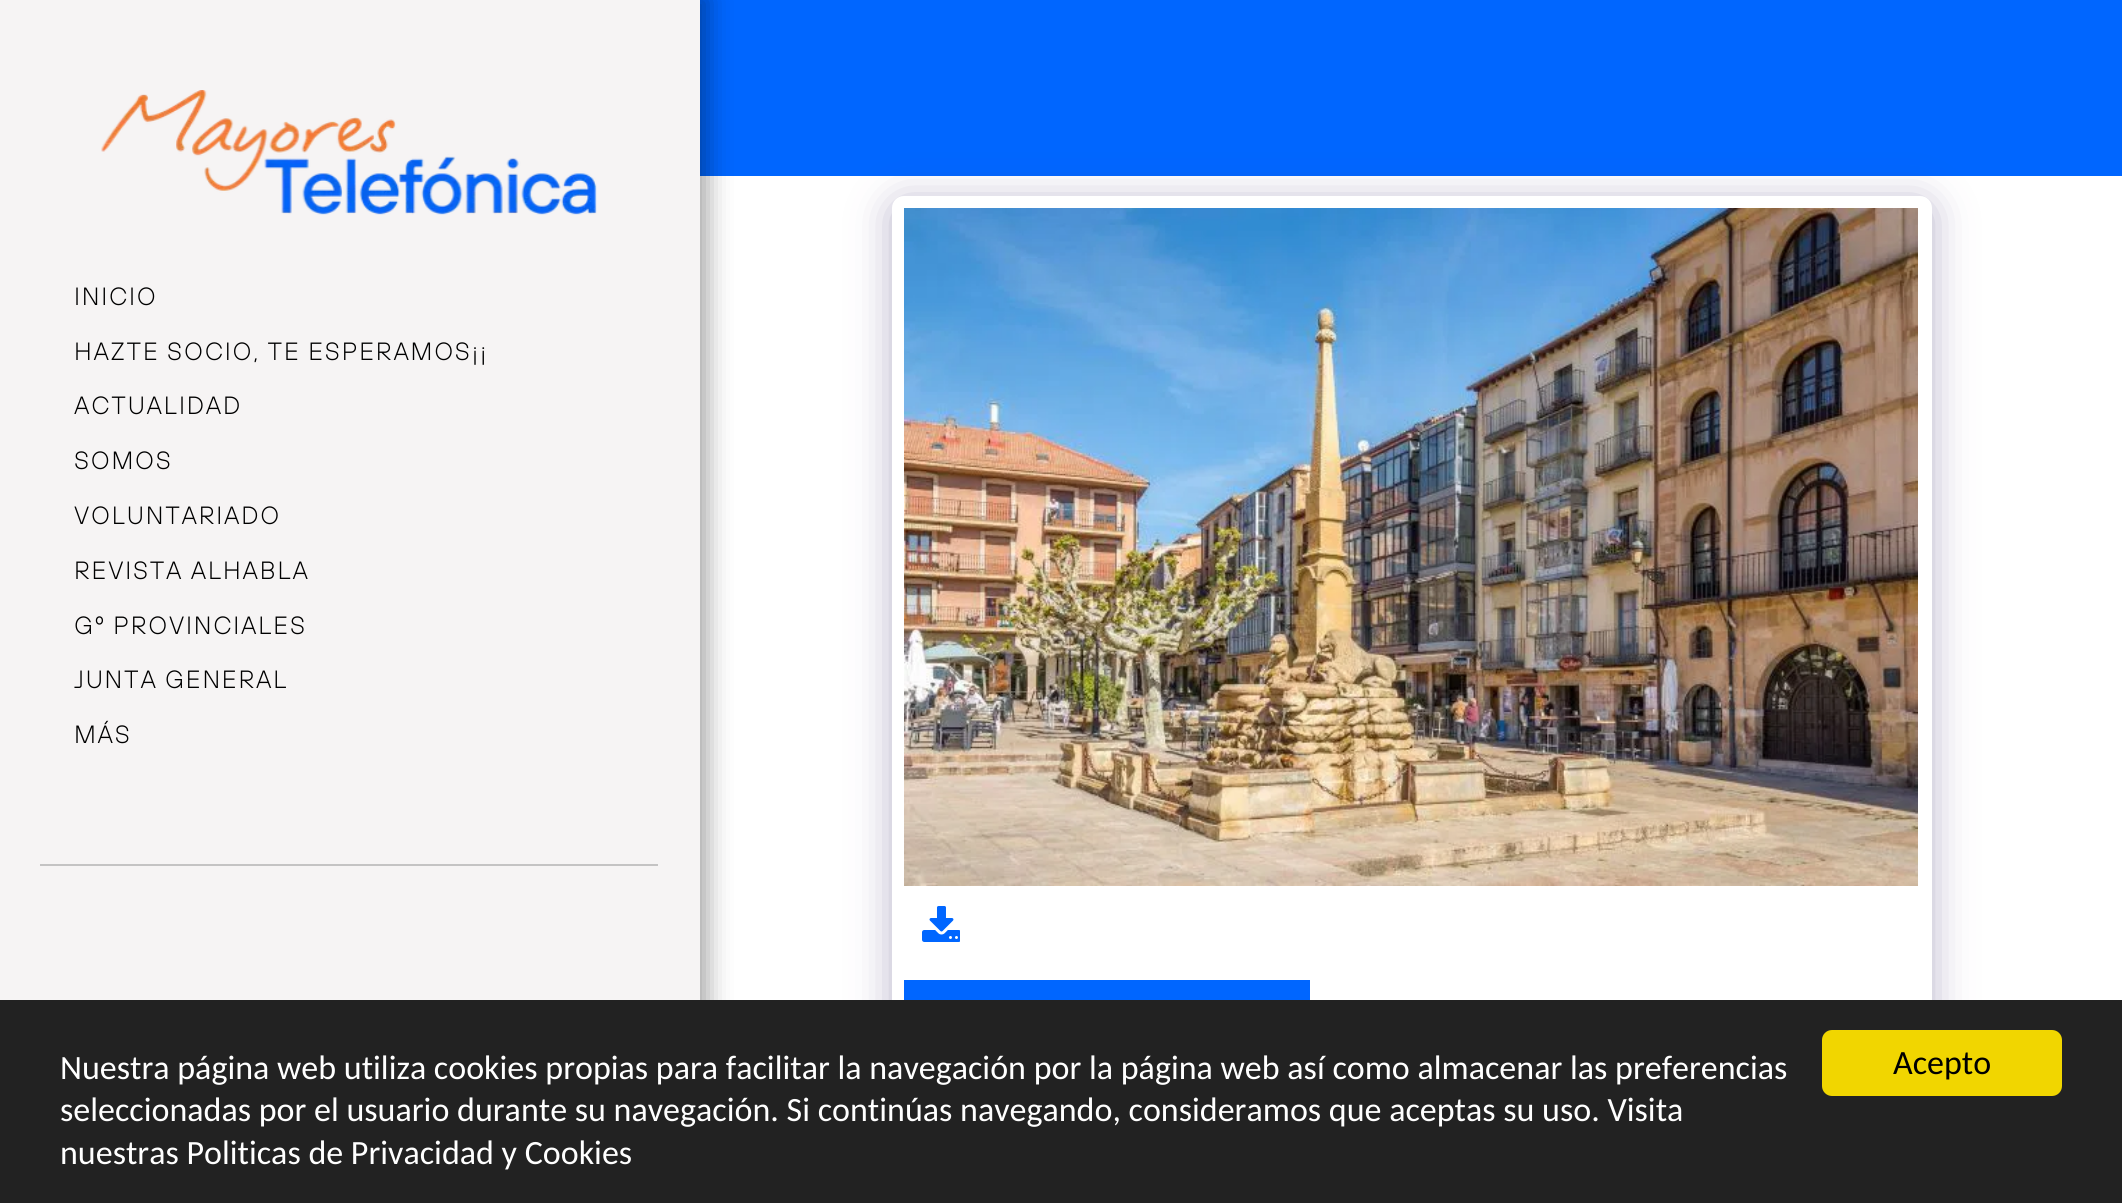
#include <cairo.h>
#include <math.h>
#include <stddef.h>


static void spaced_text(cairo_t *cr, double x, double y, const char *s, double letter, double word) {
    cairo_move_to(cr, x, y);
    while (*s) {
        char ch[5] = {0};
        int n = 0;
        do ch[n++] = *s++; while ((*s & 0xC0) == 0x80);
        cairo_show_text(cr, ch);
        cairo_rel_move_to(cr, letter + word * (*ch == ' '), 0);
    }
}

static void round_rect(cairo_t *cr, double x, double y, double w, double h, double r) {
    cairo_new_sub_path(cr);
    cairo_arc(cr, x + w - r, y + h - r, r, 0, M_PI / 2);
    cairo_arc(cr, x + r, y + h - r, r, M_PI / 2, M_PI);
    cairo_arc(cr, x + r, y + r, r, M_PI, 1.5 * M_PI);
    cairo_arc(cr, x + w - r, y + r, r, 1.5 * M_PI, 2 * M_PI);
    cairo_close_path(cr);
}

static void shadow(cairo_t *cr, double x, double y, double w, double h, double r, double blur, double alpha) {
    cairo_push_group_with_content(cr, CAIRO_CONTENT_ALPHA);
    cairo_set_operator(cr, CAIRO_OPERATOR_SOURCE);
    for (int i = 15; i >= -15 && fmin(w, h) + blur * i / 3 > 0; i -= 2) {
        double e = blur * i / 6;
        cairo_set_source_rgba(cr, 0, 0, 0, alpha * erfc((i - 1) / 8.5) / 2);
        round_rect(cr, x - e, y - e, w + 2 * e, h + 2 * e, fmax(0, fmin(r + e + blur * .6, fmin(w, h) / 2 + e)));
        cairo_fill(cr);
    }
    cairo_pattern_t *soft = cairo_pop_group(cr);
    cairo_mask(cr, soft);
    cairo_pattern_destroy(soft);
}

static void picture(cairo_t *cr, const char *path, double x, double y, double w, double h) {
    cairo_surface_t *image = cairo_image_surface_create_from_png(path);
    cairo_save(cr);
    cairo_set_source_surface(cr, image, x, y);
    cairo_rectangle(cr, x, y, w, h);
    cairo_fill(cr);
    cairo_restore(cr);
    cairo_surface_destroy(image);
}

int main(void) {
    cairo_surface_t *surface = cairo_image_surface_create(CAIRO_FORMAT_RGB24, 2122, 1203);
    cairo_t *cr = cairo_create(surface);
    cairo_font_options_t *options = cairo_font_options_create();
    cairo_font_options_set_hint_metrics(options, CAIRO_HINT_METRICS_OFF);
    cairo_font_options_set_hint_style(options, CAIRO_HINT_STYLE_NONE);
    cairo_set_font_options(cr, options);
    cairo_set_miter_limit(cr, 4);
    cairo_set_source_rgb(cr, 1, 1, 1);
    cairo_paint(cr);
    cairo_set_source_rgb(cr, 0, 0.4, 1);
    cairo_rectangle(cr, 700, 0, 1422, 176);
    cairo_fill(cr);
    cairo_set_source_rgb(cr, 0, 0, 0);
    shadow(cr, 0, -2, 708, 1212, 0, 12, 0.35);
    cairo_set_source_rgb(cr, 0.961, 0.957, 0.957);
    cairo_rectangle(cr, 0, 0, 700, 1000);
    cairo_fill(cr);
    picture(cr, "img1.png", 101, 90, 496, 125);
    cairo_select_font_face(cr, "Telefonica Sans", CAIRO_FONT_SLANT_NORMAL, CAIRO_FONT_WEIGHT_BOLD);
    cairo_set_font_size(cr, 24);
    cairo_set_source_rgb(cr, 0, 0, 0);
    spaced_text(cr, 74, 305, "INICIO", 2.4, 0);
    spaced_text(cr, 74, 360, "HAZTE SOCIO, TE ESPERAMOS¡¡", 2.4, 0);
    spaced_text(cr, 74, 414, "ACTUALIDAD", 2.4, 0);
    spaced_text(cr, 74, 469, "SOMOS", 2.4, 0);
    spaced_text(cr, 74, 524, "VOLUNTARIADO", 2.4, 0);
    spaced_text(cr, 74, 579, "REVISTA ALHABLA", 2.4, 0);
    spaced_text(cr, 74, 634, "Gº PROVINCIALES", 2.4, 0);
    spaced_text(cr, 74, 688, "JUNTA GENERAL", 2.4, 0);
    spaced_text(cr, 74, 743, "MÁS", 2.4, 0);
    cairo_set_source_rgb(cr, 0.769, 0.765, 0.765);
    cairo_rectangle(cr, 40, 864, 618, 2);
    cairo_fill(cr);
    cairo_set_source_rgb(cr, 0.302, 0.247, 0.478);
    shadow(cr, 892, 202, 1040, 904, 12, 20, 0.4);
    cairo_set_source_rgb(cr, 1, 1, 1);
    round_rect(cr, 892, 196, 1040, 904, 12);
    cairo_fill(cr);
    picture(cr, "img2.png", 904, 208, 1014, 678);
    picture(cr, "img3.png", 922, 906, 38, 36);
    cairo_set_source_rgb(cr, 0, 0.4, 1);
    cairo_rectangle(cr, 904, 980, 406, 20);
    cairo_fill(cr);
    cairo_new_path(cr);
    cairo_move_to(cr, 904, 1088);
    cairo_line_to(cr, 904, 980);
    cairo_line_to(cr, 906, 982);
    cairo_line_to(cr, 906, 1082);
    cairo_close_path(cr);
    cairo_fill(cr);
    cairo_set_source_rgb(cr, 0.133, 0.133, 0.133);
    cairo_rectangle(cr, 0, 1000, 2122, 203);
    cairo_fill(cr);
    cairo_select_font_face(cr, "Carlito", CAIRO_FONT_SLANT_NORMAL, CAIRO_FONT_WEIGHT_NORMAL);
    cairo_set_font_size(cr, 34);
    cairo_set_source_rgb(cr, 1, 1, 1);
    cairo_move_to(cr, 60, 1079);
    cairo_show_text(cr, "Nuestra página web utiliza cookies propias para facilitar la navegación por la página web así como almacenar las preferencias");
    cairo_move_to(cr, 60, 1121);
    cairo_show_text(cr, "seleccionadas por el usuario durante su navegación. Si continúas navegando, consideramos que aceptas su uso. Visita");
    cairo_move_to(cr, 60, 1164);
    cairo_show_text(cr, "nuestras Politicas de Privacidad y Cookies");
    cairo_set_source_rgb(cr, 0.945, 0.839, 0);
    round_rect(cr, 1822, 1030, 240, 66, 10);
    cairo_fill(cr);
    cairo_set_source_rgb(cr, 0, 0, 0);
    cairo_move_to(cr, 1893, 1074);
    cairo_show_text(cr, "Acepto");
    cairo_surface_write_to_png(surface, "page.png");
    cairo_font_options_destroy(options);
    cairo_destroy(cr);
    cairo_surface_destroy(surface);
    return 0;
}
